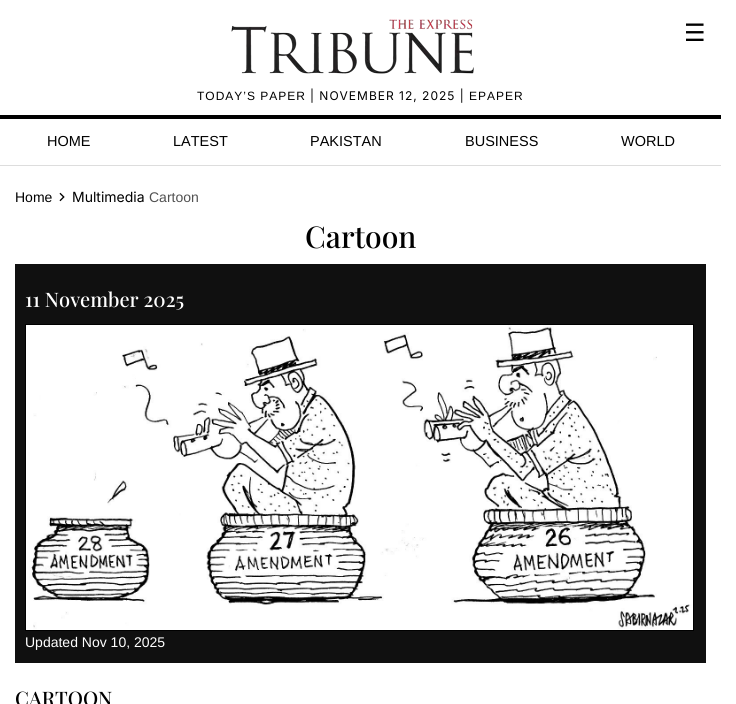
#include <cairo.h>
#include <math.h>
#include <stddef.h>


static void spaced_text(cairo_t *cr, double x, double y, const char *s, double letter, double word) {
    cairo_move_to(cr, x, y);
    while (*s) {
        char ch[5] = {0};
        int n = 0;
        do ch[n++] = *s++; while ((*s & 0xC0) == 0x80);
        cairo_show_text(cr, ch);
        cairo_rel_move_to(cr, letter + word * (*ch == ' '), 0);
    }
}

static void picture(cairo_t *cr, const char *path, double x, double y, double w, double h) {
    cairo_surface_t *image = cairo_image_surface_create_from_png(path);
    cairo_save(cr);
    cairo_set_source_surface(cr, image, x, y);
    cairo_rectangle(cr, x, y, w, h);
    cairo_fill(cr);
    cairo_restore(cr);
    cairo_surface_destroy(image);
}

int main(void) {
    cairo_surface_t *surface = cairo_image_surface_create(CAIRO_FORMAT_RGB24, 736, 704);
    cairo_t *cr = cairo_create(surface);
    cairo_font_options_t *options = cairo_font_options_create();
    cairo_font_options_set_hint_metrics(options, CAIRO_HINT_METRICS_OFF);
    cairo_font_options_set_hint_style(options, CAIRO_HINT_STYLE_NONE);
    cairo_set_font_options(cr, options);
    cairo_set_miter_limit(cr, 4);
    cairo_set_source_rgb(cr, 1, 1, 1);
    cairo_paint(cr);
    picture(cr, "img1.png", 231, 19, 243, 55);
    cairo_select_font_face(cr, "DejaVu Sans", CAIRO_FONT_SLANT_NORMAL, CAIRO_FONT_WEIGHT_NORMAL);
    cairo_set_font_size(cr, 24);
    cairo_set_source_rgb(cr, 0, 0, 0);
    cairo_move_to(cr, 684, 41);
    cairo_show_text(cr, "☰");
    cairo_select_font_face(cr, "Liberation Sans", CAIRO_FONT_SLANT_NORMAL, CAIRO_FONT_WEIGHT_NORMAL);
    cairo_set_font_size(cr, 12);
    spaced_text(cr, 197, 100, "TODAY’S PAPER", 1, 0);
    cairo_select_font_face(cr, "Inter", CAIRO_FONT_SLANT_NORMAL, CAIRO_FONT_WEIGHT_NORMAL);
    spaced_text(cr, 310, 100, "| NOVEMBER 12, 2025 |", 1, 0);
    cairo_select_font_face(cr, "Liberation Sans", CAIRO_FONT_SLANT_NORMAL, CAIRO_FONT_WEIGHT_NORMAL);
    spaced_text(cr, 469, 100, "EPAPER", 1, 0);
    cairo_rectangle(cr, 0, 115, 721, 4);
    cairo_fill(cr);
    cairo_set_source_rgb(cr, 0.867, 0.867, 0.867);
    cairo_rectangle(cr, 0, 165, 721, 1);
    cairo_fill(cr);
    cairo_set_font_size(cr, 14.5);
    cairo_set_source_rgb(cr, 0, 0, 0);
    cairo_move_to(cr, 47, 146);
    cairo_show_text(cr, "HOME");
    cairo_move_to(cr, 173, 146);
    cairo_show_text(cr, "LATEST");
    cairo_move_to(cr, 310, 146);
    cairo_show_text(cr, "PAKISTAN");
    cairo_move_to(cr, 465, 146);
    cairo_show_text(cr, "BUSINESS");
    cairo_move_to(cr, 621, 146);
    cairo_show_text(cr, "WORLD");
    cairo_set_font_size(cr, 14);
    cairo_move_to(cr, 15, 202);
    cairo_show_text(cr, "Home");
    picture(cr, "img2.png", 59, 192, 6, 10);
    cairo_select_font_face(cr, "Inter", CAIRO_FONT_SLANT_NORMAL, CAIRO_FONT_WEIGHT_NORMAL);
    cairo_move_to(cr, 72, 202);
    cairo_show_text(cr, "Multimedia");
    cairo_select_font_face(cr, "Liberation Sans", CAIRO_FONT_SLANT_NORMAL, CAIRO_FONT_WEIGHT_NORMAL);
    cairo_set_source_rgb(cr, 0.318, 0.318, 0.318);
    cairo_move_to(cr, 149, 202);
    cairo_show_text(cr, "Cartoon");
    cairo_select_font_face(cr, "Playfair Display Medium", CAIRO_FONT_SLANT_NORMAL, CAIRO_FONT_WEIGHT_NORMAL);
    cairo_set_font_size(cr, 30);
    cairo_set_source_rgb(cr, 0, 0, 0);
    cairo_move_to(cr, 305, 248);
    cairo_show_text(cr, "Cartoon");
    cairo_set_source_rgb(cr, 0.063, 0.063, 0.063);
    cairo_rectangle(cr, 15, 264, 691, 399);
    cairo_fill(cr);
    cairo_set_font_size(cr, 20);
    cairo_set_source_rgb(cr, 1, 1, 1);
    cairo_move_to(cr, 25, 307);
    cairo_show_text(cr, "11 November 2025");
    cairo_rectangle(cr, 25.5, 324.5, 668, 306);
    cairo_set_source_rgb(cr, 0, 0, 0);
    cairo_set_line_width(cr, 1);
    cairo_stroke(cr);
    picture(cr, "img3.png", 26, 325, 667, 305);
    cairo_select_font_face(cr, "Liberation Sans", CAIRO_FONT_SLANT_NORMAL, CAIRO_FONT_WEIGHT_NORMAL);
    cairo_set_font_size(cr, 14);
    cairo_set_source_rgb(cr, 1, 1, 1);
    cairo_move_to(cr, 25, 647);
    cairo_show_text(cr, "Updated Nov 10, 2025");
    cairo_select_font_face(cr, "Playfair Display Medium", CAIRO_FONT_SLANT_NORMAL, CAIRO_FONT_WEIGHT_NORMAL);
    cairo_set_font_size(cr, 20);
    cairo_set_source_rgb(cr, 0, 0, 0);
    cairo_move_to(cr, 15, 706);
    cairo_show_text(cr, "CARTOON");
    cairo_surface_write_to_png(surface, "page.png");
    cairo_font_options_destroy(options);
    cairo_destroy(cr);
    cairo_surface_destroy(surface);
    return 0;
}
